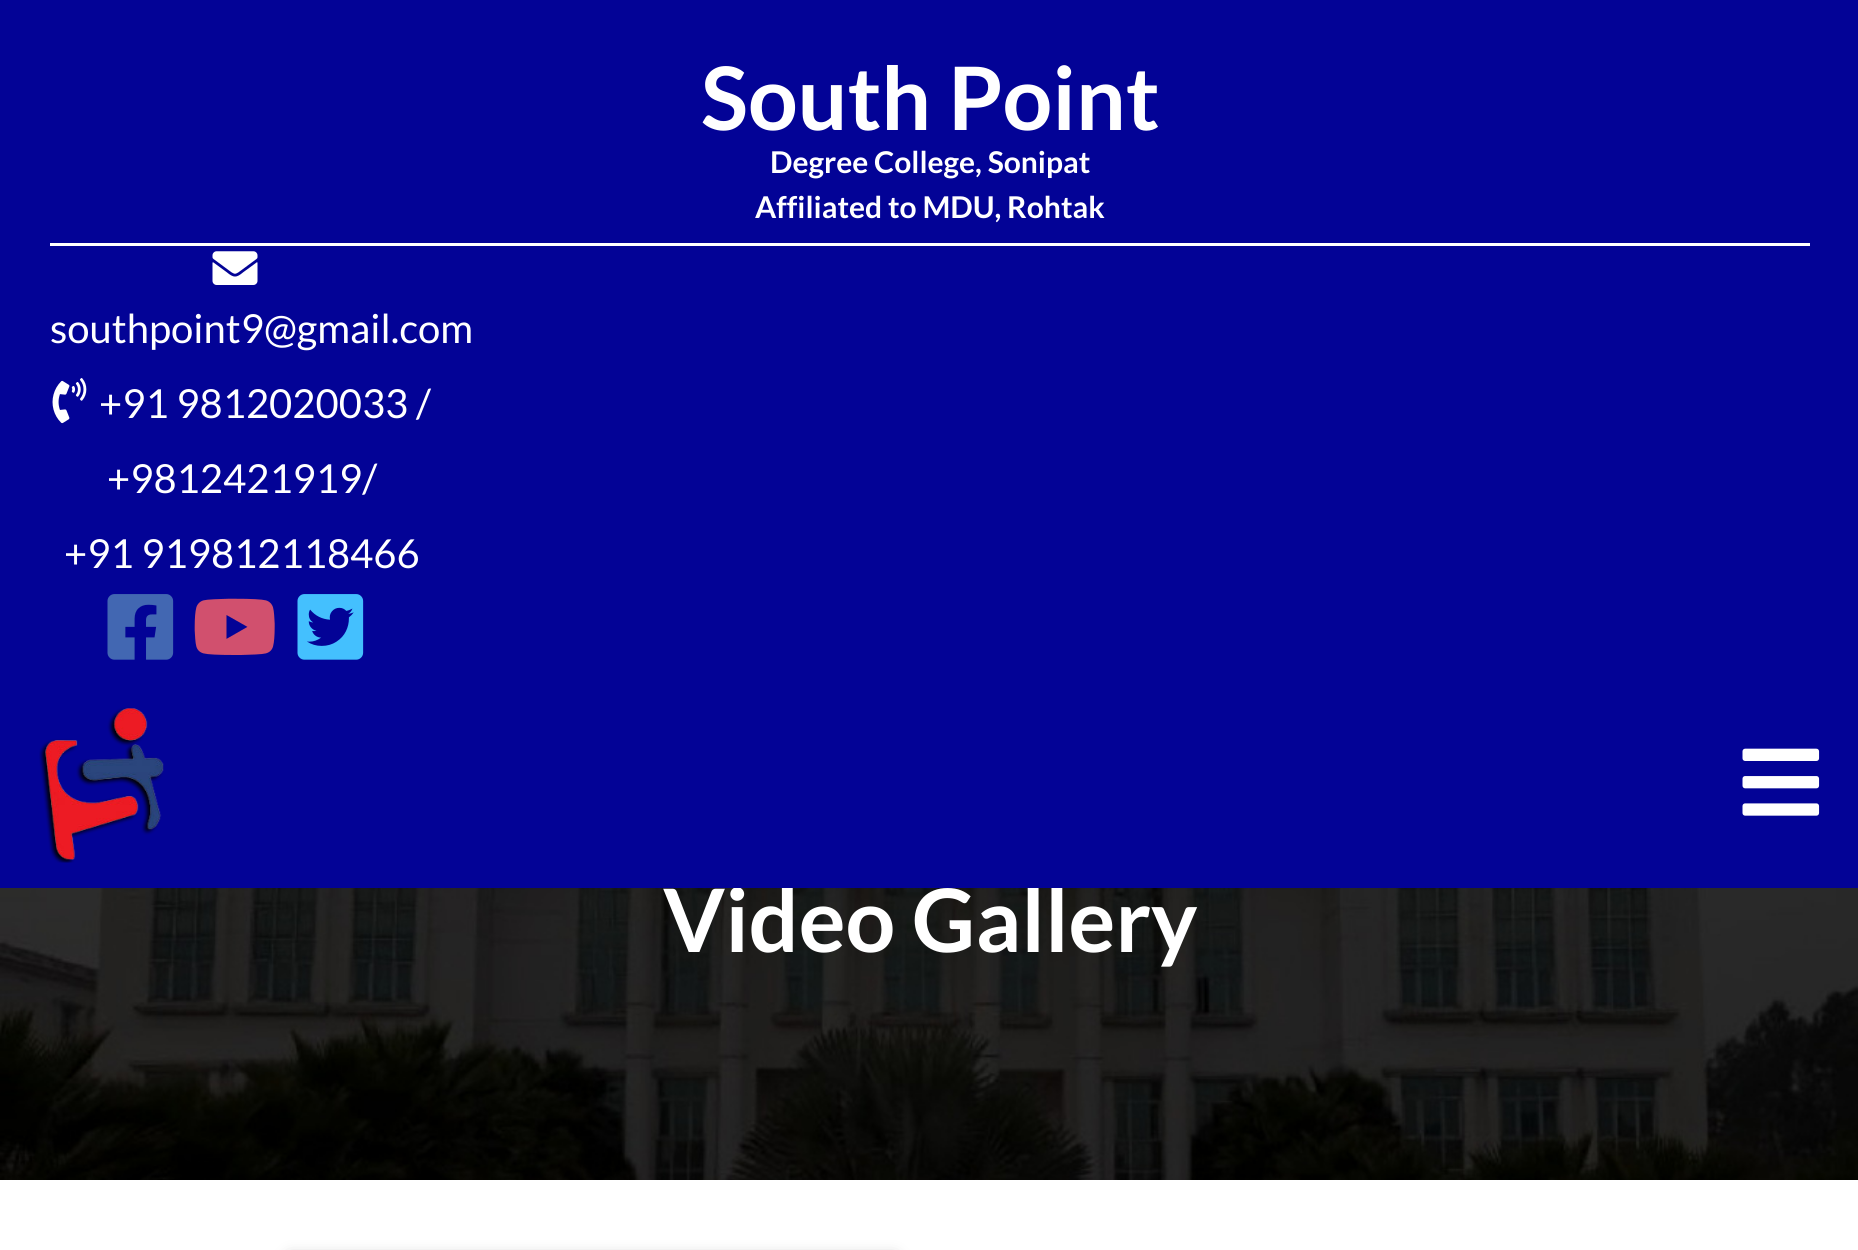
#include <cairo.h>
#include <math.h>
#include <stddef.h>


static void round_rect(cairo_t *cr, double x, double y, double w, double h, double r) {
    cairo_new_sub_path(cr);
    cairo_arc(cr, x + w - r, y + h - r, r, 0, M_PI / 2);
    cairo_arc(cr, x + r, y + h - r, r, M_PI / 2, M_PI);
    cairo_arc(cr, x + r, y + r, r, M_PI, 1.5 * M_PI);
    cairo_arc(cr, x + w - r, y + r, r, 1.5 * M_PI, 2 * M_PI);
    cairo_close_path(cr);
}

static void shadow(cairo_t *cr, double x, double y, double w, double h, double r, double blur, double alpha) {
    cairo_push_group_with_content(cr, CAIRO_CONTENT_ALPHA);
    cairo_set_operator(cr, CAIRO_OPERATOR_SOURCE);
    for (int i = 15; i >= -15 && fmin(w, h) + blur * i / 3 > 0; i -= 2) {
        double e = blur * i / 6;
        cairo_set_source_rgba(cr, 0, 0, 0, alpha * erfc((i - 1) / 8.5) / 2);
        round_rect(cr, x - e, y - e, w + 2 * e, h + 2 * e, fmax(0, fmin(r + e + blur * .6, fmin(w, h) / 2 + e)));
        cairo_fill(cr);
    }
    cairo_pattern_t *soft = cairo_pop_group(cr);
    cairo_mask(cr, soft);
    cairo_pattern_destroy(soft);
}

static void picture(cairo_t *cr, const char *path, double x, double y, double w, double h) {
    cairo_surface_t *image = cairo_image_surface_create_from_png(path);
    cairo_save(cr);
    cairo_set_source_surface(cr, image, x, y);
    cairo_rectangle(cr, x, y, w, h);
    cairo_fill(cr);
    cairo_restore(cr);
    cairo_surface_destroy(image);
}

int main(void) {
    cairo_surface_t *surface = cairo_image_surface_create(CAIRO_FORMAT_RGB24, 1858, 1250);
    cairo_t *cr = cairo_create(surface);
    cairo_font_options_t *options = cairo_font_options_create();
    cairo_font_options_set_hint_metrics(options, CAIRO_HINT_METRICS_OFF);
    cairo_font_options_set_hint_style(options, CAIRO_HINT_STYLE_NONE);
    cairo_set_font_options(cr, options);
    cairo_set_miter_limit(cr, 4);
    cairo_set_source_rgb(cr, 1, 1, 1);
    cairo_paint(cr);
    picture(cr, "img8.png", 0, 888, 1858, 292);
    cairo_select_font_face(cr, "Lato", CAIRO_FONT_SLANT_NORMAL, CAIRO_FONT_WEIGHT_BOLD);
    cairo_set_font_size(cr, 87.5);
    cairo_set_source_rgb(cr, 1, 1, 1);
    cairo_move_to(cr, 663, 952);
    cairo_show_text(cr, "Video Gallery");
    cairo_set_source_rgb(cr, 0.012, 0.012, 0.588);
    cairo_rectangle(cr, 0, 0, 1858, 888);
    cairo_fill(cr);
    cairo_set_source_rgb(cr, 1, 1, 1);
    cairo_move_to(cr, 701, 130);
    cairo_show_text(cr, "South Point");
    cairo_set_font_size(cr, 30);
    cairo_move_to(cr, 770, 173);
    cairo_show_text(cr, "Degree College, Sonipat");
    cairo_rectangle(cr, 50, 243, 1760, 3);
    cairo_fill(cr);
    cairo_move_to(cr, 755, 218);
    cairo_show_text(cr, "Affiliated to MDU, Rohtak");
    picture(cr, "img1.png", 212, 251, 46, 34);
    cairo_select_font_face(cr, "Lato", CAIRO_FONT_SLANT_NORMAL, CAIRO_FONT_WEIGHT_NORMAL);
    cairo_set_font_size(cr, 40);
    cairo_move_to(cr, 50, 343);
    cairo_show_text(cr, "southpoint9@gmail.com");
    picture(cr, "img2.png", 52, 378, 35, 46);
    cairo_move_to(cr, 99, 418);
    cairo_show_text(cr, "+91 9812020033 /");
    cairo_move_to(cr, 107, 493);
    cairo_show_text(cr, "+9812421919/");
    cairo_move_to(cr, 64, 568);
    cairo_show_text(cr, "+91 919812118466");
    picture(cr, "img3.png", 107, 594, 67, 66);
    picture(cr, "img4.png", 194, 598, 81, 57);
    picture(cr, "img5.png", 297, 594, 67, 66);
    picture(cr, "img6.png", 39, 707, 125, 156);
    picture(cr, "img7.png", 1742, 748, 78, 68);
    cairo_set_source_rgb(cr, 0.631, 0.631, 0.631);
    shadow(cr, 290, 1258, 605, 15, 0, 7.5, 1);
    cairo_surface_write_to_png(surface, "page.png");
    cairo_font_options_destroy(options);
    cairo_destroy(cr);
    cairo_surface_destroy(surface);
    return 0;
}
